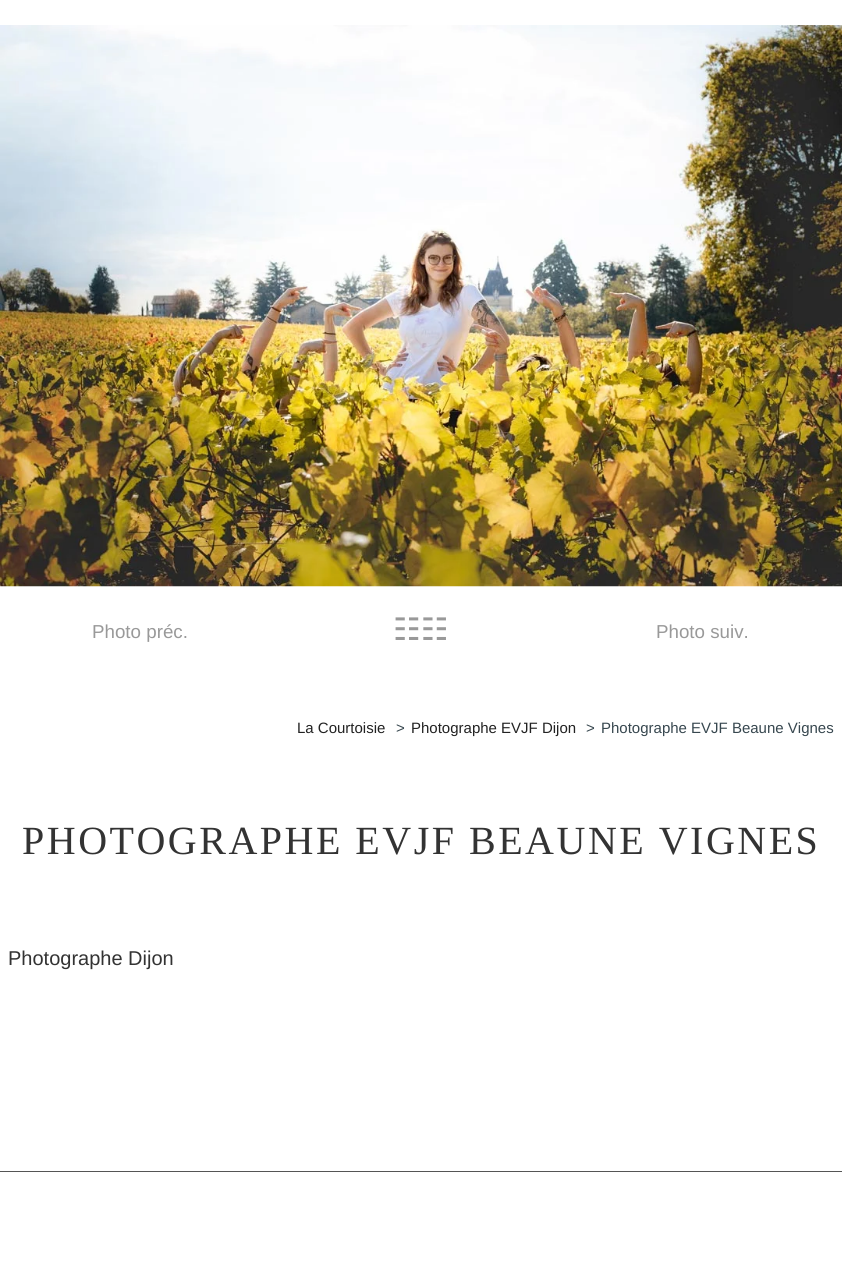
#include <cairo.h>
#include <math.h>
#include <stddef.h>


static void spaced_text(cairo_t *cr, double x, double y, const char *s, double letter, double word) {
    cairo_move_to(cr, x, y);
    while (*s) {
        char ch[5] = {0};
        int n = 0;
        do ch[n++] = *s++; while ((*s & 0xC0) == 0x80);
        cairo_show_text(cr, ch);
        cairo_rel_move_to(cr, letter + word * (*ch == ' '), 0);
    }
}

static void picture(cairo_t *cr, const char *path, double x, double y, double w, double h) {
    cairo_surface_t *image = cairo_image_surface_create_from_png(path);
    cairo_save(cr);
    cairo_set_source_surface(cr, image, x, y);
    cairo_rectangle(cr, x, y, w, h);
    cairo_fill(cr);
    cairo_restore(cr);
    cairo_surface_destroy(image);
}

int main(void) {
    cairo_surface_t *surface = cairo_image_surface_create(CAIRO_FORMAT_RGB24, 842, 1278);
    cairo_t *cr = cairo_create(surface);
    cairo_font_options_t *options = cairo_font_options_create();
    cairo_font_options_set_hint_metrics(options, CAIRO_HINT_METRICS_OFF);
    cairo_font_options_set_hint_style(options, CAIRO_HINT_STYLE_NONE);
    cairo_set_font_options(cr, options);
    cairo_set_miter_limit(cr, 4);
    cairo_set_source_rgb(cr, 1, 1, 1);
    cairo_paint(cr);
    picture(cr, "img1.png", 0, 25, 842, 562);
    cairo_select_font_face(cr, "Liberation Sans", CAIRO_FONT_SLANT_NORMAL, CAIRO_FONT_WEIGHT_NORMAL);
    cairo_set_font_size(cr, 18.75);
    cairo_set_source_rgb(cr, 0.6, 0.6, 0.6);
    cairo_move_to(cr, 92, 638);
    cairo_show_text(cr, "Photo préc.");
    cairo_select_font_face(cr, "DejaVu Sans", CAIRO_FONT_SLANT_NORMAL, CAIRO_FONT_WEIGHT_NORMAL);
    cairo_set_font_size(cr, 31);
    cairo_move_to(cr, 393, 640);
    cairo_show_text(cr, "☷☷");
    cairo_select_font_face(cr, "Liberation Sans", CAIRO_FONT_SLANT_NORMAL, CAIRO_FONT_WEIGHT_NORMAL);
    cairo_set_font_size(cr, 18.75);
    cairo_move_to(cr, 656, 638);
    cairo_show_text(cr, "Photo suiv.");
    cairo_set_font_size(cr, 15);
    cairo_set_source_rgb(cr, 0.133, 0.133, 0.133);
    cairo_move_to(cr, 297, 733);
    cairo_show_text(cr, "La Courtoisie");
    cairo_set_source_rgb(cr, 0.216, 0.278, 0.31);
    cairo_move_to(cr, 396, 733);
    cairo_show_text(cr, ">");
    cairo_set_source_rgb(cr, 0.133, 0.133, 0.133);
    cairo_move_to(cr, 411, 733);
    cairo_show_text(cr, "Photographe EVJF Dijon");
    cairo_set_source_rgb(cr, 0.216, 0.278, 0.31);
    cairo_move_to(cr, 586, 733);
    cairo_show_text(cr, ">");
    cairo_move_to(cr, 601, 733);
    cairo_show_text(cr, "Photographe EVJF Beaune Vignes");
    cairo_select_font_face(cr, "Liberation Serif", CAIRO_FONT_SLANT_NORMAL, CAIRO_FONT_WEIGHT_NORMAL);
    cairo_set_font_size(cr, 40);
    cairo_set_source_rgb(cr, 0.2, 0.2, 0.2);
    spaced_text(cr, 22, 854, "PHOTOGRAPHE EVJF BEAUNE VIGNES", 2.5, 0);
    cairo_select_font_face(cr, "Liberation Sans", CAIRO_FONT_SLANT_NORMAL, CAIRO_FONT_WEIGHT_NORMAL);
    cairo_set_font_size(cr, 20);
    cairo_move_to(cr, 8, 965);
    cairo_show_text(cr, "Photographe Dijon");
    cairo_set_source_rgb(cr, 0.333, 0.333, 0.333);
    cairo_rectangle(cr, 0, 1171, 842, 1);
    cairo_fill(cr);
    cairo_surface_write_to_png(surface, "page.png");
    cairo_font_options_destroy(options);
    cairo_destroy(cr);
    cairo_surface_destroy(surface);
    return 0;
}
